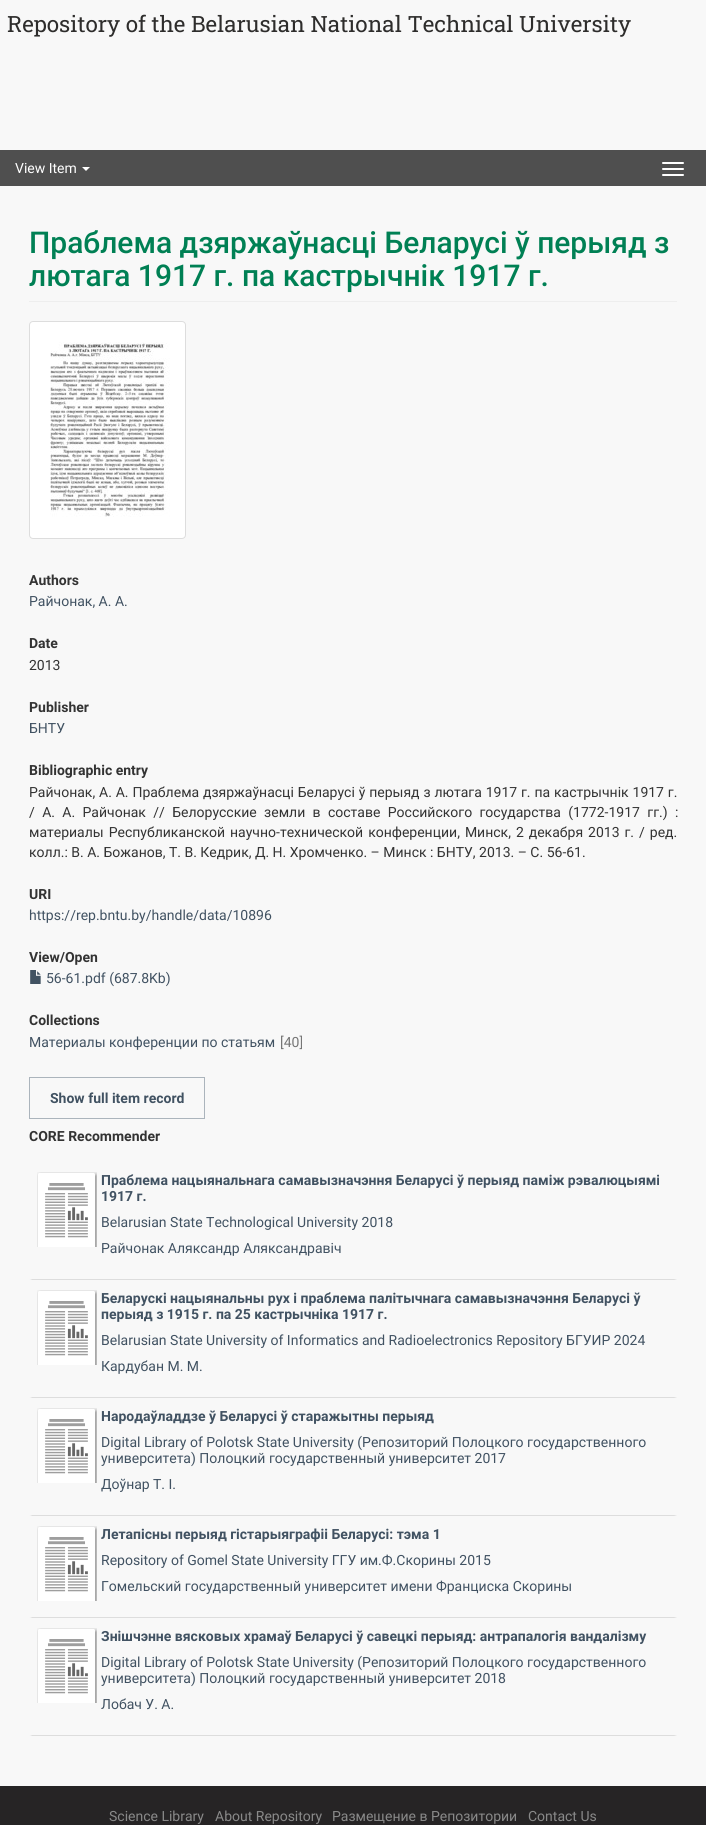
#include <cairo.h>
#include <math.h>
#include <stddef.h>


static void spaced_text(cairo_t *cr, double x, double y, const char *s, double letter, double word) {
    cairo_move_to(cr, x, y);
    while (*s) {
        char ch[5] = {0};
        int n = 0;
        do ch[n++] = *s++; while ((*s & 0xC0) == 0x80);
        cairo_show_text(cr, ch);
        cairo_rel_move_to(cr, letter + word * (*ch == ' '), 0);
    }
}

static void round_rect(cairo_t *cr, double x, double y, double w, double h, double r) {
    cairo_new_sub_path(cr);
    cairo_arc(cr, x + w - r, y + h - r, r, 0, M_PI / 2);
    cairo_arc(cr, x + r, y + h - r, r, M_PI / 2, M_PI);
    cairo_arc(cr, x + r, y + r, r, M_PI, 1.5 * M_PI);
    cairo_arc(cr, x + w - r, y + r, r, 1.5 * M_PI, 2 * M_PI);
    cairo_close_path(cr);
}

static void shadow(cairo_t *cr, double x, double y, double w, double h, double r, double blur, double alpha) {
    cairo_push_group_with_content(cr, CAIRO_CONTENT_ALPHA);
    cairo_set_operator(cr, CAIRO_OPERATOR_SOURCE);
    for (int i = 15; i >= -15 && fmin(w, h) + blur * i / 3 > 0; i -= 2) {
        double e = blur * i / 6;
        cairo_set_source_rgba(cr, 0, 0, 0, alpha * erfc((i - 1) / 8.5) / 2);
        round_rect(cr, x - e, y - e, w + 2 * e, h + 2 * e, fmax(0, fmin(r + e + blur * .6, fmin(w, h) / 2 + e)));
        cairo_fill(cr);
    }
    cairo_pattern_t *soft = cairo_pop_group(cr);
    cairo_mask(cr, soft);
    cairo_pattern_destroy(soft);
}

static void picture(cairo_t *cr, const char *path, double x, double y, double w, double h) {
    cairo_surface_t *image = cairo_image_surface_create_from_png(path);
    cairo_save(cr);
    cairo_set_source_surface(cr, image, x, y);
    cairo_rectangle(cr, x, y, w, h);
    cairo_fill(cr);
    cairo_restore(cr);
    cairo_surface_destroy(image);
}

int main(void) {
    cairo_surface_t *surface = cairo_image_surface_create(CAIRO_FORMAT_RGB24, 706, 1825);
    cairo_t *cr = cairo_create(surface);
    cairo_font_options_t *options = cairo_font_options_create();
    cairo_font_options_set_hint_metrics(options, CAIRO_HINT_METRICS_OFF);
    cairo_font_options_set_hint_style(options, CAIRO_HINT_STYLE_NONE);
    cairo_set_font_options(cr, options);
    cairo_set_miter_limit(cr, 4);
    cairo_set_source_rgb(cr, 0.969, 0.969, 0.969);
    cairo_paint(cr);
    cairo_select_font_face(cr, "Roboto Slab", CAIRO_FONT_SLANT_NORMAL, CAIRO_FONT_WEIGHT_NORMAL);
    cairo_set_font_size(cr, 22.4);
    cairo_set_source_rgb(cr, 0.18, 0.176, 0.173);
    cairo_move_to(cr, 7, 32);
    cairo_show_text(cr, "Repository of the Belarusian National Technical University");
    cairo_set_source_rgb(cr, 0.31, 0.31, 0.31);
    cairo_rectangle(cr, 0, 150, 706, 36);
    cairo_fill(cr);
    cairo_select_font_face(cr, "Roboto", CAIRO_FONT_SLANT_NORMAL, CAIRO_FONT_WEIGHT_NORMAL);
    cairo_set_font_size(cr, 14);
    cairo_set_source_rgb(cr, 1, 1, 1);
    cairo_move_to(cr, 15, 173);
    cairo_show_text(cr, "View Item");
    cairo_new_path(cr);
    cairo_move_to(cr, 82, 167);
    cairo_line_to(cr, 90, 167);
    cairo_line_to(cr, 86, 171);
    cairo_close_path(cr);
    cairo_fill(cr);
    round_rect(cr, 662, 162, 22, 2, 1);
    cairo_fill(cr);
    round_rect(cr, 662, 168, 22, 2, 1);
    cairo_fill(cr);
    round_rect(cr, 662, 174, 22, 2, 1);
    cairo_fill(cr);
    cairo_set_source_rgb(cr, 0.933, 0.933, 0.933);
    cairo_rectangle(cr, 29, 301, 648, 1);
    cairo_fill(cr);
    cairo_select_font_face(cr, "Roboto Medium", CAIRO_FONT_SLANT_NORMAL, CAIRO_FONT_WEIGHT_NORMAL);
    cairo_set_font_size(cr, 30);
    cairo_set_source_rgb(cr, 0, 0.502, 0.329);
    cairo_move_to(cr, 29, 253);
    cairo_show_text(cr, "Праблема дзяржаўнасці Беларусі ў перыяд з");
    cairo_move_to(cr, 29, 286);
    cairo_show_text(cr, "лютага 1917 г. па кастрычнік 1917 г.");
    cairo_set_source_rgb(cr, 1, 1, 1);
    round_rect(cr, 29.5, 321.5, 156, 217, 3.5);
    cairo_fill_preserve(cr);
    cairo_set_source_rgb(cr, 0.867, 0.867, 0.867);
    cairo_set_line_width(cr, 1);
    cairo_stroke(cr);
    picture(cr, "img1.png", 50, 342, 120, 175);
    cairo_select_font_face(cr, "Roboto", CAIRO_FONT_SLANT_NORMAL, CAIRO_FONT_WEIGHT_BOLD);
    cairo_set_font_size(cr, 14);
    cairo_set_source_rgb(cr, 0.2, 0.2, 0.2);
    cairo_move_to(cr, 29, 585);
    cairo_show_text(cr, "Authors");
    cairo_select_font_face(cr, "Roboto", CAIRO_FONT_SLANT_NORMAL, CAIRO_FONT_WEIGHT_NORMAL);
    cairo_set_source_rgb(cr, 0.255, 0.322, 0.384);
    cairo_move_to(cr, 29, 606);
    cairo_show_text(cr, "Райчонак, А. А.");
    cairo_select_font_face(cr, "Roboto", CAIRO_FONT_SLANT_NORMAL, CAIRO_FONT_WEIGHT_BOLD);
    cairo_set_source_rgb(cr, 0.2, 0.2, 0.2);
    cairo_move_to(cr, 29, 648);
    cairo_show_text(cr, "Date");
    cairo_select_font_face(cr, "Roboto", CAIRO_FONT_SLANT_NORMAL, CAIRO_FONT_WEIGHT_NORMAL);
    cairo_move_to(cr, 29, 670);
    cairo_show_text(cr, "2013");
    cairo_select_font_face(cr, "Roboto", CAIRO_FONT_SLANT_NORMAL, CAIRO_FONT_WEIGHT_BOLD);
    cairo_move_to(cr, 29, 712);
    cairo_show_text(cr, "Publisher");
    cairo_select_font_face(cr, "Roboto", CAIRO_FONT_SLANT_NORMAL, CAIRO_FONT_WEIGHT_NORMAL);
    cairo_set_source_rgb(cr, 0.255, 0.322, 0.384);
    cairo_move_to(cr, 29, 733);
    cairo_show_text(cr, "БНТУ");
    cairo_select_font_face(cr, "Roboto", CAIRO_FONT_SLANT_NORMAL, CAIRO_FONT_WEIGHT_BOLD);
    cairo_set_source_rgb(cr, 0.2, 0.2, 0.2);
    cairo_move_to(cr, 29, 775);
    cairo_show_text(cr, "Bibliographic entry");
    cairo_select_font_face(cr, "Roboto", CAIRO_FONT_SLANT_NORMAL, CAIRO_FONT_WEIGHT_NORMAL);
    spaced_text(cr, 29, 797, "Райчонак, А. А. Праблема дзяржаўнасці Беларусі ў перыяд з лютага 1917 г. па кастрычнік 1917 г.", 0, 0.4);
    spaced_text(cr, 29, 817, "/ А. А. Райчонак // Белорусские земли в составе Российского государства (1772-1917 гг.) :", 0, 3.9);
    spaced_text(cr, 29, 837, "материалы Республиканской научно-технической конференции, Минск, 2 декабря 2013 г. / ред.", 0, 1.5);
    cairo_move_to(cr, 29, 857);
    cairo_show_text(cr, "колл.: В. А. Божанов, Т. В. Кедрик, Д. Н. Хромченко. – Минск : БНТУ, 2013. – С. 56-61.");
    cairo_select_font_face(cr, "Roboto", CAIRO_FONT_SLANT_NORMAL, CAIRO_FONT_WEIGHT_BOLD);
    cairo_move_to(cr, 29, 899);
    cairo_show_text(cr, "URI");
    cairo_select_font_face(cr, "Roboto", CAIRO_FONT_SLANT_NORMAL, CAIRO_FONT_WEIGHT_NORMAL);
    cairo_set_source_rgb(cr, 0.255, 0.322, 0.384);
    cairo_move_to(cr, 29, 920);
    cairo_show_text(cr, "https://rep.bntu.by/handle/data/10896");
    cairo_select_font_face(cr, "Roboto", CAIRO_FONT_SLANT_NORMAL, CAIRO_FONT_WEIGHT_BOLD);
    cairo_set_source_rgb(cr, 0.2, 0.2, 0.2);
    cairo_move_to(cr, 29, 962);
    cairo_show_text(cr, "View/Open");
    picture(cr, "img2.png", 30, 970, 11, 14);
    cairo_select_font_face(cr, "Roboto", CAIRO_FONT_SLANT_NORMAL, CAIRO_FONT_WEIGHT_NORMAL);
    cairo_set_source_rgb(cr, 0.255, 0.322, 0.384);
    cairo_move_to(cr, 46, 983);
    cairo_show_text(cr, "56-61.pdf (687.8Kb)");
    cairo_select_font_face(cr, "Roboto", CAIRO_FONT_SLANT_NORMAL, CAIRO_FONT_WEIGHT_BOLD);
    cairo_set_source_rgb(cr, 0.2, 0.2, 0.2);
    cairo_move_to(cr, 29, 1025);
    cairo_show_text(cr, "Collections");
    cairo_select_font_face(cr, "Roboto", CAIRO_FONT_SLANT_NORMAL, CAIRO_FONT_WEIGHT_NORMAL);
    cairo_set_source_rgb(cr, 0.255, 0.322, 0.384);
    cairo_move_to(cr, 29, 1047);
    cairo_show_text(cr, "Материалы конференции по статьям");
    cairo_set_source_rgb(cr, 0.463, 0.463, 0.463);
    cairo_move_to(cr, 280, 1047);
    cairo_show_text(cr, "[40]");
    cairo_rectangle(cr, 29.5, 1077.5, 175, 41);
    cairo_set_source_rgb(cr, 0.671, 0.706, 0.737);
    cairo_stroke(cr);
    cairo_select_font_face(cr, "Roboto", CAIRO_FONT_SLANT_NORMAL, CAIRO_FONT_WEIGHT_BOLD);
    cairo_set_source_rgb(cr, 0.255, 0.322, 0.384);
    cairo_move_to(cr, 50, 1103);
    cairo_show_text(cr, "Show full item record");
    cairo_set_source_rgb(cr, 0.2, 0.2, 0.2);
    cairo_move_to(cr, 29, 1141);
    cairo_show_text(cr, "CORE Recommender");
    cairo_set_source_rgb(cr, 0.867, 0.867, 0.867);
    cairo_new_path(cr);
    cairo_move_to(cr, 677, 1280);
    cairo_line_to(cr, 29, 1280);
    cairo_line_to(cr, 32, 1279);
    cairo_line_to(cr, 674, 1279);
    cairo_close_path(cr);
    cairo_fill(cr);
    cairo_set_source_rgb(cr, 0.969, 0.969, 0.969);
    cairo_new_path(cr);
    cairo_move_to(cr, 29, 1280);
    cairo_line_to(cr, 29, 1162);
    cairo_line_to(cr, 32, 1162);
    cairo_line_to(cr, 32, 1279);
    cairo_close_path(cr);
    cairo_fill(cr);
    cairo_save(cr);
    cairo_rectangle(cr, 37, 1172, 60, 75);
    cairo_clip(cr);
    cairo_set_source_rgb(cr, 0.533, 0.533, 0.533);
    shadow(cr, 40, 1175, 57, 75, 0, 2.5, 1);
    cairo_restore(cr);
    picture(cr, "img3.png", 38, 1173, 57, 74);
    cairo_set_source_rgb(cr, 0.255, 0.322, 0.384);
    cairo_move_to(cr, 101, 1185);
    cairo_show_text(cr, "Праблема нацыянальнага самавызначэння Беларусі ў перыяд паміж рэвалюцыямі");
    cairo_move_to(cr, 101, 1201);
    cairo_show_text(cr, "1917 г.");
    cairo_select_font_face(cr, "Roboto", CAIRO_FONT_SLANT_NORMAL, CAIRO_FONT_WEIGHT_NORMAL);
    cairo_move_to(cr, 101, 1227);
    cairo_show_text(cr, "Belarusian State Technological University 2018");
    cairo_move_to(cr, 101, 1253);
    cairo_show_text(cr, "Райчонак Аляксандр Аляксандравіч");
    cairo_set_source_rgb(cr, 0.867, 0.867, 0.867);
    cairo_new_path(cr);
    cairo_move_to(cr, 677, 1398);
    cairo_line_to(cr, 29, 1398);
    cairo_line_to(cr, 32, 1397);
    cairo_line_to(cr, 674, 1397);
    cairo_close_path(cr);
    cairo_fill(cr);
    cairo_set_source_rgb(cr, 0.969, 0.969, 0.969);
    cairo_new_path(cr);
    cairo_move_to(cr, 29, 1398);
    cairo_line_to(cr, 29, 1280);
    cairo_line_to(cr, 32, 1280);
    cairo_line_to(cr, 32, 1397);
    cairo_close_path(cr);
    cairo_fill(cr);
    cairo_save(cr);
    cairo_rectangle(cr, 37, 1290, 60, 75);
    cairo_clip(cr);
    cairo_set_source_rgb(cr, 0.533, 0.533, 0.533);
    shadow(cr, 40, 1293, 57, 75, 0, 2.5, 1);
    cairo_restore(cr);
    picture(cr, "img3.png", 38, 1291, 57, 74);
    cairo_select_font_face(cr, "Roboto", CAIRO_FONT_SLANT_NORMAL, CAIRO_FONT_WEIGHT_BOLD);
    cairo_set_source_rgb(cr, 0.255, 0.322, 0.384);
    cairo_move_to(cr, 101, 1303);
    cairo_show_text(cr, "Беларускi нацыянальны рух i праблема палiтычнага самавызначэння Беларусі ў");
    cairo_move_to(cr, 101, 1319);
    cairo_show_text(cr, "перыяд з 1915 г. па 25 кастрычніка 1917 г.");
    cairo_select_font_face(cr, "Roboto", CAIRO_FONT_SLANT_NORMAL, CAIRO_FONT_WEIGHT_NORMAL);
    cairo_move_to(cr, 101, 1345);
    cairo_show_text(cr, "Belarusian State University of Informatics and Radioelectronics Repository БГУИР 2024");
    cairo_move_to(cr, 101, 1371);
    cairo_show_text(cr, "Кардубан М. М.");
    cairo_set_source_rgb(cr, 0.867, 0.867, 0.867);
    cairo_new_path(cr);
    cairo_move_to(cr, 677, 1516);
    cairo_line_to(cr, 29, 1516);
    cairo_line_to(cr, 32, 1515);
    cairo_line_to(cr, 674, 1515);
    cairo_close_path(cr);
    cairo_fill(cr);
    cairo_set_source_rgb(cr, 0.969, 0.969, 0.969);
    cairo_new_path(cr);
    cairo_move_to(cr, 29, 1516);
    cairo_line_to(cr, 29, 1398);
    cairo_line_to(cr, 32, 1398);
    cairo_line_to(cr, 32, 1515);
    cairo_close_path(cr);
    cairo_fill(cr);
    cairo_save(cr);
    cairo_rectangle(cr, 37, 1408, 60, 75);
    cairo_clip(cr);
    cairo_set_source_rgb(cr, 0.533, 0.533, 0.533);
    shadow(cr, 40, 1411, 57, 75, 0, 2.5, 1);
    cairo_restore(cr);
    picture(cr, "img3.png", 38, 1409, 57, 74);
    cairo_select_font_face(cr, "Roboto", CAIRO_FONT_SLANT_NORMAL, CAIRO_FONT_WEIGHT_BOLD);
    cairo_set_source_rgb(cr, 0.255, 0.322, 0.384);
    cairo_move_to(cr, 101, 1421);
    cairo_show_text(cr, "Народаўладдзе ў Беларусі ў старажытны перыяд");
    cairo_select_font_face(cr, "Roboto", CAIRO_FONT_SLANT_NORMAL, CAIRO_FONT_WEIGHT_NORMAL);
    cairo_move_to(cr, 101, 1447);
    cairo_show_text(cr, "Digital Library of Polotsk State University (Репозиторий Полоцкого государственного");
    cairo_move_to(cr, 101, 1463);
    cairo_show_text(cr, "университета) Полоцкий государственный университет 2017");
    cairo_save(cr);
    cairo_rectangle(cr, 101, 1408, 563, 94);
    cairo_clip(cr);
    cairo_move_to(cr, 101, 1489);
    cairo_show_text(cr, "Доўнар");
    cairo_restore(cr);
    cairo_move_to(cr, 153, 1489);
    cairo_show_text(cr, "Т. І.");
    cairo_set_source_rgb(cr, 0.867, 0.867, 0.867);
    cairo_new_path(cr);
    cairo_move_to(cr, 677, 1618);
    cairo_line_to(cr, 29, 1618);
    cairo_line_to(cr, 32, 1617);
    cairo_line_to(cr, 674, 1617);
    cairo_close_path(cr);
    cairo_fill(cr);
    cairo_set_source_rgb(cr, 0.969, 0.969, 0.969);
    cairo_new_path(cr);
    cairo_move_to(cr, 29, 1618);
    cairo_line_to(cr, 29, 1516);
    cairo_line_to(cr, 32, 1516);
    cairo_line_to(cr, 32, 1617);
    cairo_close_path(cr);
    cairo_fill(cr);
    cairo_save(cr);
    cairo_rectangle(cr, 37, 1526, 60, 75);
    cairo_clip(cr);
    cairo_set_source_rgb(cr, 0.533, 0.533, 0.533);
    shadow(cr, 40, 1529, 57, 75, 0, 2.5, 1);
    cairo_restore(cr);
    picture(cr, "img3.png", 38, 1527, 57, 74);
    cairo_select_font_face(cr, "Roboto", CAIRO_FONT_SLANT_NORMAL, CAIRO_FONT_WEIGHT_BOLD);
    cairo_set_source_rgb(cr, 0.255, 0.322, 0.384);
    cairo_move_to(cr, 101, 1539);
    cairo_show_text(cr, "Летапісны перыяд гістарыяграфіі Беларусі: тэма 1");
    cairo_select_font_face(cr, "Roboto", CAIRO_FONT_SLANT_NORMAL, CAIRO_FONT_WEIGHT_NORMAL);
    cairo_move_to(cr, 101, 1565);
    cairo_show_text(cr, "Repository of Gomel State University ГГУ им.Ф.Скорины 2015");
    cairo_move_to(cr, 101, 1591);
    cairo_show_text(cr, "Гомельский государственный университет имени Франциска Скорины");
    cairo_set_source_rgb(cr, 0.867, 0.867, 0.867);
    cairo_new_path(cr);
    cairo_move_to(cr, 677, 1736);
    cairo_line_to(cr, 29, 1736);
    cairo_line_to(cr, 32, 1735);
    cairo_line_to(cr, 674, 1735);
    cairo_close_path(cr);
    cairo_fill(cr);
    cairo_set_source_rgb(cr, 0.969, 0.969, 0.969);
    cairo_new_path(cr);
    cairo_move_to(cr, 29, 1736);
    cairo_line_to(cr, 29, 1618);
    cairo_line_to(cr, 32, 1618);
    cairo_line_to(cr, 32, 1735);
    cairo_close_path(cr);
    cairo_fill(cr);
    cairo_save(cr);
    cairo_rectangle(cr, 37, 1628, 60, 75);
    cairo_clip(cr);
    cairo_set_source_rgb(cr, 0.533, 0.533, 0.533);
    shadow(cr, 40, 1631, 57, 75, 0, 2.5, 1);
    cairo_restore(cr);
    picture(cr, "img3.png", 38, 1629, 57, 74);
    cairo_select_font_face(cr, "Roboto", CAIRO_FONT_SLANT_NORMAL, CAIRO_FONT_WEIGHT_BOLD);
    cairo_set_source_rgb(cr, 0.255, 0.322, 0.384);
    cairo_move_to(cr, 101, 1641);
    cairo_show_text(cr, "Знішчэнне вясковых храмаў Беларусі ў савецкі перыяд: антрапалогія вандалізму");
    cairo_select_font_face(cr, "Roboto", CAIRO_FONT_SLANT_NORMAL, CAIRO_FONT_WEIGHT_NORMAL);
    cairo_move_to(cr, 101, 1667);
    cairo_show_text(cr, "Digital Library of Polotsk State University (Репозиторий Полоцкого государственного");
    cairo_move_to(cr, 101, 1683);
    cairo_show_text(cr, "университета) Полоцкий государственный университет 2018");
    cairo_move_to(cr, 101, 1709);
    cairo_show_text(cr, "Лобач У. А.");
    cairo_set_source_rgb(cr, 0.149, 0.141, 0.145);
    cairo_rectangle(cr, 0, 1786, 706, 39);
    cairo_fill(cr);
    cairo_set_source_rgb(cr, 0.537, 0.537, 0.537);
    cairo_move_to(cr, 109, 1821);
    cairo_show_text(cr, "Science Library");
    cairo_move_to(cr, 215, 1821);
    cairo_show_text(cr, "About Repository");
    cairo_move_to(cr, 332, 1821);
    cairo_show_text(cr, "Размещение в Репозитории");
    cairo_move_to(cr, 528, 1821);
    cairo_show_text(cr, "Contact Us");
    cairo_surface_write_to_png(surface, "page.png");
    cairo_font_options_destroy(options);
    cairo_destroy(cr);
    cairo_surface_destroy(surface);
    return 0;
}
